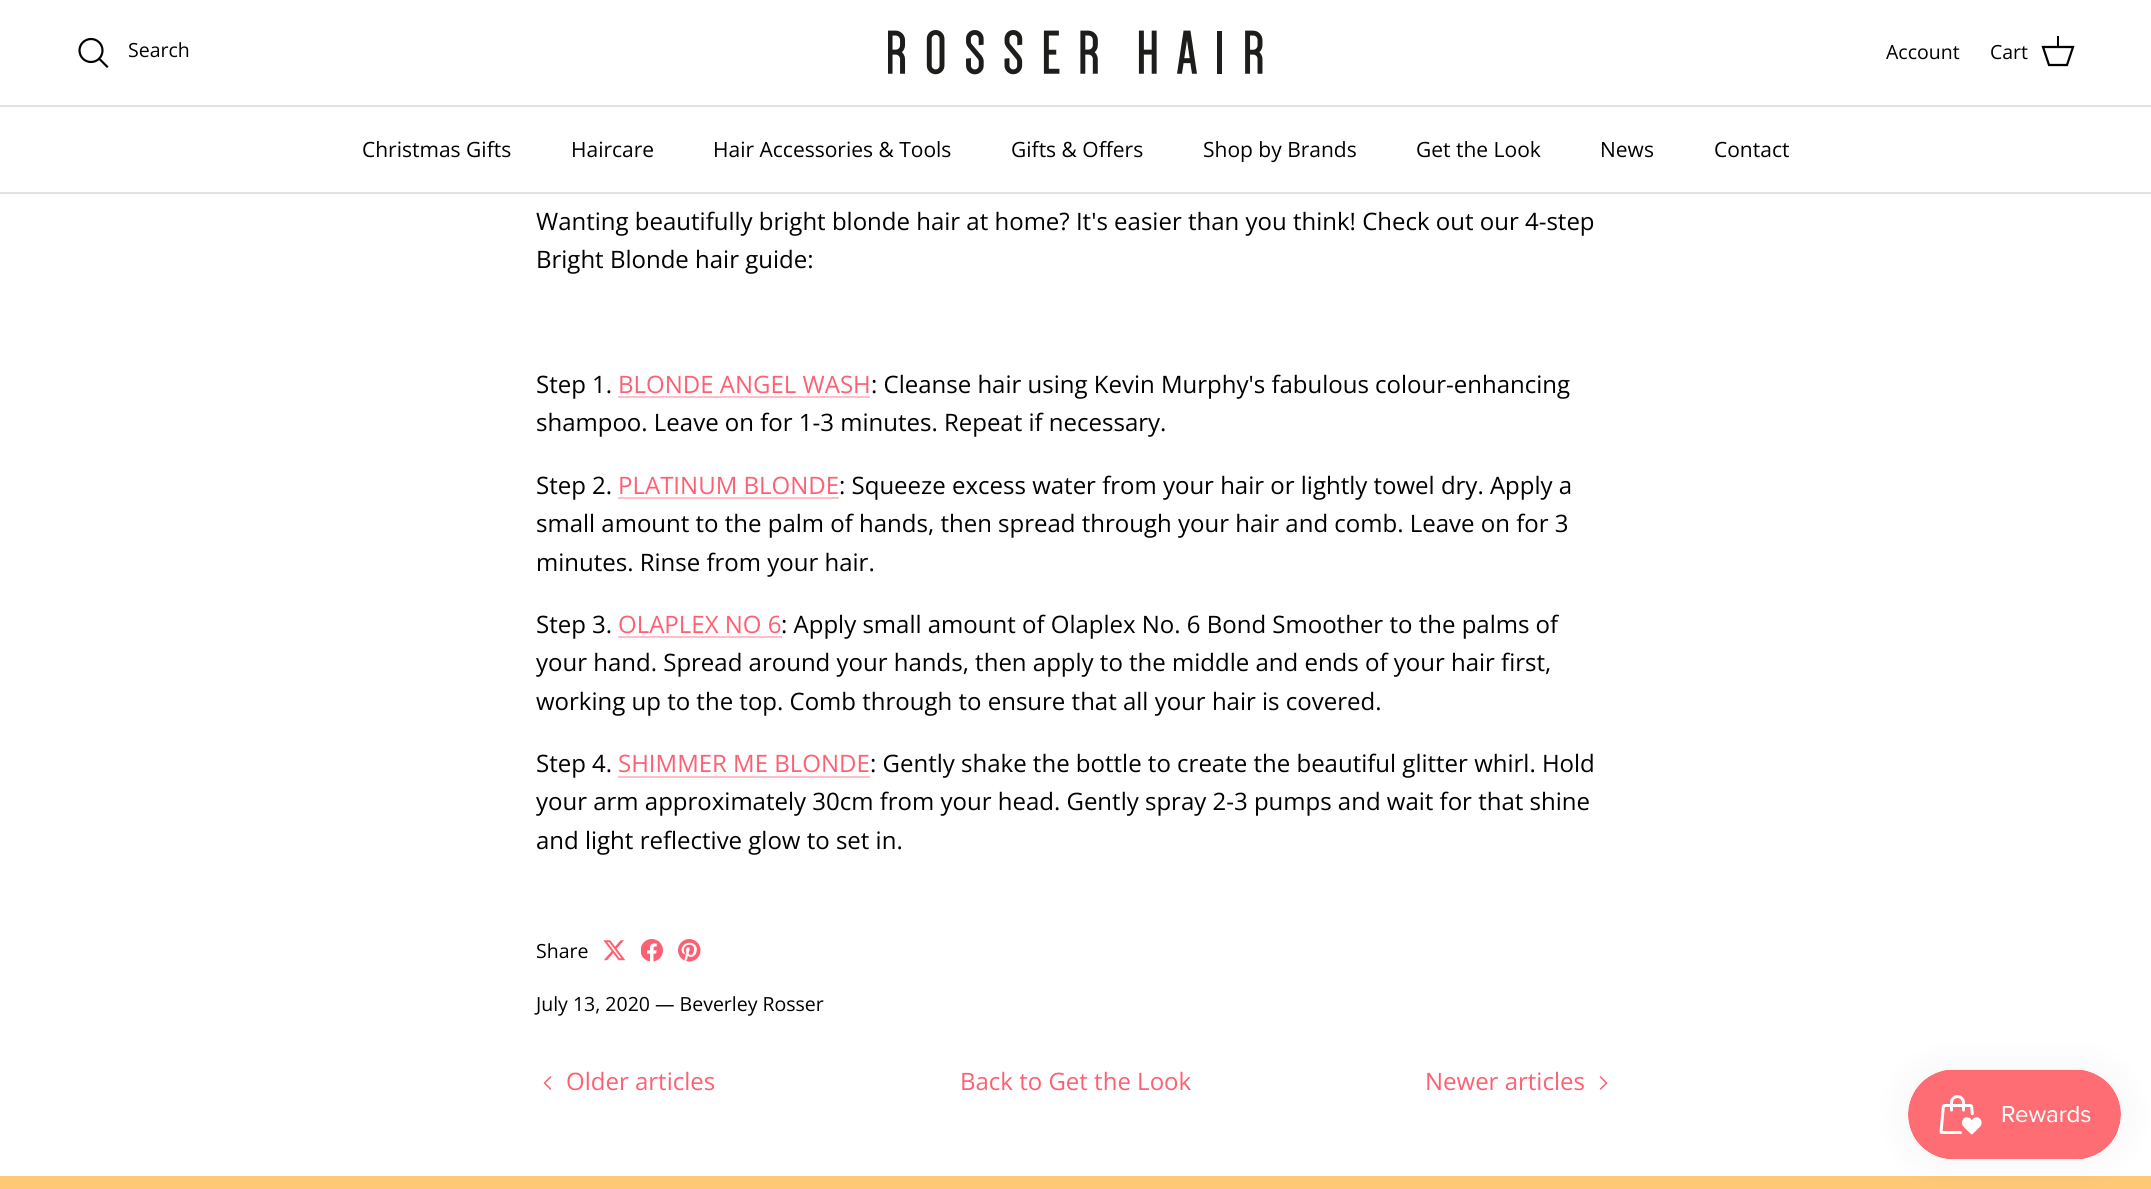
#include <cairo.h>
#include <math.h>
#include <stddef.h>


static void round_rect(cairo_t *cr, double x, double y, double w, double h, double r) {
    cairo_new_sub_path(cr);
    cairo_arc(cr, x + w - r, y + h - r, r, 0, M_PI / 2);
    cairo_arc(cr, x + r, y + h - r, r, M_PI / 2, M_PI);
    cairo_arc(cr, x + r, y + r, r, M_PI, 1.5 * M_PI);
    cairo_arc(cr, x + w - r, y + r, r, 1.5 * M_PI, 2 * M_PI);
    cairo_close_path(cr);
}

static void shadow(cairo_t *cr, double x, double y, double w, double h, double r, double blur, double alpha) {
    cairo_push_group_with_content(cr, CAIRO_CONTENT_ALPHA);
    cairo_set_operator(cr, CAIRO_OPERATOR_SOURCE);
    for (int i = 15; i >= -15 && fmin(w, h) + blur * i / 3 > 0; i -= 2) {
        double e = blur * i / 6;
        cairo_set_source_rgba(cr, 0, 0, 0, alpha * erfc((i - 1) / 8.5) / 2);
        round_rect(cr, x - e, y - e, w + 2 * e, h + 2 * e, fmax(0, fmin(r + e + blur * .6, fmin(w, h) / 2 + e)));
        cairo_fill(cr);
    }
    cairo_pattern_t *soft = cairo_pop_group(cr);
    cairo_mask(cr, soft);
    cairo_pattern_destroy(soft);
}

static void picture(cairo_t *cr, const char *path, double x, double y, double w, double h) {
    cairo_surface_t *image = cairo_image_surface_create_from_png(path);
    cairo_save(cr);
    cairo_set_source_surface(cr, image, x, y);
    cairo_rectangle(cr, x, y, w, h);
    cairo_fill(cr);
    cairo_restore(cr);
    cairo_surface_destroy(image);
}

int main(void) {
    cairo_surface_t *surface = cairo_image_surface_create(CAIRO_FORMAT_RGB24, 2151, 1189);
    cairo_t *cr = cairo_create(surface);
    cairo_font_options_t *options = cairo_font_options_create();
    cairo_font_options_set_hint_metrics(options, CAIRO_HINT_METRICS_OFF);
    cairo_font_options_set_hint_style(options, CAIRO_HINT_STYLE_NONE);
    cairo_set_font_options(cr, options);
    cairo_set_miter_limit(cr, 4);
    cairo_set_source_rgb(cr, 1, 1, 1);
    cairo_paint(cr);
    cairo_set_source_rgb(cr, 0.886, 0.886, 0.886);
    cairo_rectangle(cr, 0, 105, 2151, 2);
    cairo_fill(cr);
    cairo_arc(cr, 91, 50.5, 11.5, 0, 2 * M_PI);
    cairo_set_source_rgb(cr, 0, 0, 0);
    cairo_set_line_width(cr, 2.2);
    cairo_stroke(cr);
    cairo_select_font_face(cr, "Open Sans", CAIRO_FONT_SLANT_NORMAL, CAIRO_FONT_WEIGHT_NORMAL);
    cairo_set_font_size(cr, 19.5);
    cairo_move_to(cr, 128, 57);
    cairo_show_text(cr, "Search");
    cairo_new_path(cr);
    cairo_move_to(cr, 100.5, 60);
    cairo_line_to(cr, 107, 66.5);
    cairo_set_line_cap(cr, CAIRO_LINE_CAP_SQUARE);
    cairo_stroke(cr);
    picture(cr, "img1.png", 888, 30, 375, 45);
    cairo_move_to(cr, 1886, 59);
    cairo_show_text(cr, "Account");
    cairo_move_to(cr, 1990, 59);
    cairo_show_text(cr, "Cart");
    cairo_new_path(cr);
    cairo_move_to(cr, 2043, 47);
    cairo_line_to(cr, 2073, 47);
    cairo_line_to(cr, 2067, 65);
    cairo_line_to(cr, 2049, 65);
    cairo_close_path(cr);
    cairo_set_line_cap(cr, CAIRO_LINE_CAP_BUTT);
    cairo_stroke(cr);
    cairo_rectangle(cr, 2057, 36, 2, 12);
    cairo_fill(cr);
    cairo_set_source_rgb(cr, 0.886, 0.886, 0.886);
    cairo_rectangle(cr, 0, 192, 2151, 2);
    cairo_fill(cr);
    cairo_set_font_size(cr, 21);
    cairo_set_source_rgb(cr, 0, 0, 0);
    cairo_move_to(cr, 362, 157);
    cairo_show_text(cr, "Christmas Gifts");
    cairo_move_to(cr, 571, 157);
    cairo_show_text(cr, "Haircare");
    cairo_move_to(cr, 713, 157);
    cairo_show_text(cr, "Hair Accessories & Tools");
    cairo_move_to(cr, 1011, 157);
    cairo_show_text(cr, "Gifts & Offers");
    cairo_move_to(cr, 1203, 157);
    cairo_show_text(cr, "Shop by Brands");
    cairo_move_to(cr, 1416, 157);
    cairo_show_text(cr, "Get the Look");
    cairo_move_to(cr, 1600, 157);
    cairo_show_text(cr, "News");
    cairo_move_to(cr, 1714, 157);
    cairo_show_text(cr, "Contact");
    cairo_set_font_size(cr, 24);
    cairo_move_to(cr, 536, 230);
    cairo_show_text(cr, "Wanting beautifully bright blonde hair at home? It's easier than you think! Check out our 4-step");
    cairo_move_to(cr, 536, 268);
    cairo_show_text(cr, "Bright Blonde hair guide:");
    cairo_move_to(cr, 536, 393);
    cairo_show_text(cr, "Step 1.");
    cairo_set_source_rgb(cr, 0.996, 0.376, 0.451);
    cairo_move_to(cr, 618, 393);
    cairo_show_text(cr, "BLONDE ANGEL WASH");
    cairo_set_source_rgb(cr, 1, 0.749, 0.78);
    cairo_rectangle(cr, 618, 396, 252, 2);
    cairo_fill(cr);
    cairo_set_source_rgb(cr, 0, 0, 0);
    cairo_move_to(cr, 871, 393);
    cairo_show_text(cr, ": Cleanse hair using Kevin Murphy's fabulous colour-enhancing");
    cairo_move_to(cr, 536, 431);
    cairo_show_text(cr, "shampoo. Leave on for 1-3 minutes. Repeat if necessary.");
    cairo_move_to(cr, 536, 494);
    cairo_show_text(cr, "Step 2.");
    cairo_set_source_rgb(cr, 0.996, 0.376, 0.451);
    cairo_move_to(cr, 618, 494);
    cairo_show_text(cr, "PLATINUM BLONDE");
    cairo_set_source_rgb(cr, 1, 0.749, 0.78);
    cairo_rectangle(cr, 618, 497, 221, 2);
    cairo_fill(cr);
    cairo_set_source_rgb(cr, 0, 0, 0);
    cairo_move_to(cr, 839, 494);
    cairo_show_text(cr, ": Squeeze excess water from your hair or lightly towel dry. Apply a");
    cairo_move_to(cr, 536, 532);
    cairo_show_text(cr, "small amount to the palm of hands, then spread through your hair and comb. Leave on for 3");
    cairo_move_to(cr, 536, 571);
    cairo_show_text(cr, "minutes. Rinse from your hair.");
    cairo_move_to(cr, 536, 633);
    cairo_show_text(cr, "Step 3.");
    cairo_set_source_rgb(cr, 0.996, 0.376, 0.451);
    cairo_move_to(cr, 618, 633);
    cairo_show_text(cr, "OLAPLEX NO 6");
    cairo_set_source_rgb(cr, 1, 0.749, 0.78);
    cairo_rectangle(cr, 618, 636, 164, 2);
    cairo_fill(cr);
    cairo_set_source_rgb(cr, 0, 0, 0);
    cairo_move_to(cr, 781, 633);
    cairo_show_text(cr, ": Apply small amount of Olaplex No. 6 Bond Smoother to the palms of");
    cairo_move_to(cr, 536, 671);
    cairo_show_text(cr, "your hand. Spread around your hands, then apply to the middle and ends of your hair first,");
    cairo_move_to(cr, 536, 710);
    cairo_show_text(cr, "working up to the top. Comb through to ensure that all your hair is covered.");
    cairo_move_to(cr, 536, 772);
    cairo_show_text(cr, "Step 4.");
    cairo_set_source_rgb(cr, 0.996, 0.376, 0.451);
    cairo_move_to(cr, 618, 772);
    cairo_show_text(cr, "SHIMMER ME BLONDE");
    cairo_set_source_rgb(cr, 1, 0.749, 0.78);
    cairo_rectangle(cr, 618, 776, 252, 2);
    cairo_fill(cr);
    cairo_set_source_rgb(cr, 0, 0, 0);
    cairo_move_to(cr, 870, 772);
    cairo_show_text(cr, ": Gently shake the bottle to create the beautiful glitter whirl. Hold");
    cairo_move_to(cr, 536, 810);
    cairo_show_text(cr, "your arm approximately 30cm from your head. Gently spray 2-3 pumps and wait for that shine");
    cairo_move_to(cr, 536, 849);
    cairo_show_text(cr, "and light reflective glow to set in.");
    cairo_set_font_size(cr, 19.5);
    cairo_move_to(cr, 536, 958);
    cairo_show_text(cr, "Share");
    picture(cr, "img2.png", 603, 940, 23, 21);
    picture(cr, "img3.png", 641, 939, 22, 23);
    picture(cr, "img4.png", 678, 939, 23, 23);
    cairo_move_to(cr, 536, 1011);
    cairo_show_text(cr, "July 13, 2020 — Beverley Rosser");
    cairo_set_font_size(cr, 24);
    cairo_set_source_rgb(cr, 0.996, 0.376, 0.451);
    cairo_move_to(cr, 566, 1090);
    cairo_show_text(cr, "Older articles");
    cairo_new_path(cr);
    cairo_move_to(cr, 550.5, 1089);
    cairo_line_to(cr, 544.5, 1083);
    cairo_line_to(cr, 550.5, 1077);
    cairo_set_line_width(cr, 1.5);
    cairo_set_line_cap(cr, CAIRO_LINE_CAP_ROUND);
    cairo_set_line_join(cr, CAIRO_LINE_JOIN_ROUND);
    cairo_stroke(cr);
    cairo_move_to(cr, 960, 1090);
    cairo_show_text(cr, "Back to Get the Look");
    cairo_move_to(cr, 1425, 1090);
    cairo_show_text(cr, "Newer articles");
    cairo_new_path(cr);
    cairo_move_to(cr, 1600.5, 1089);
    cairo_line_to(cr, 1606.5, 1083);
    cairo_line_to(cr, 1600.5, 1077);
    cairo_stroke(cr);
    cairo_set_source_rgb(cr, 1, 0.784, 0.467);
    cairo_rectangle(cr, 0, 1176, 2151, 13);
    cairo_fill(cr);
    cairo_set_source_rgb(cr, 0, 0, 0);
    shadow(cr, 1908, 1070, 213, 90, 45, 19, 0.05);
    picture(cr, "img5.png", 1908, 1069, 213, 91);
    cairo_surface_write_to_png(surface, "page.png");
    cairo_font_options_destroy(options);
    cairo_destroy(cr);
    cairo_surface_destroy(surface);
    return 0;
}
